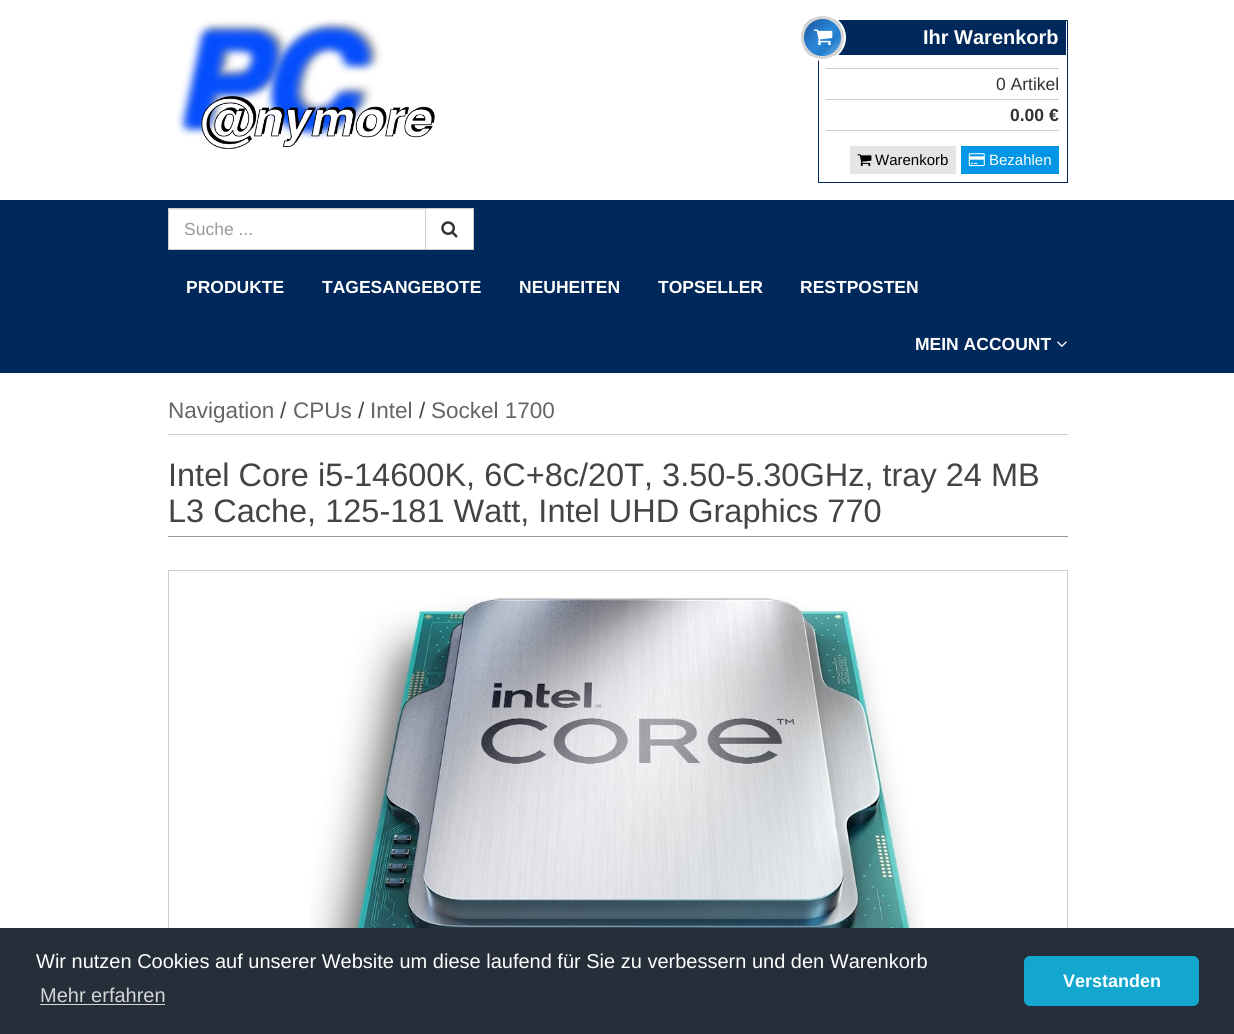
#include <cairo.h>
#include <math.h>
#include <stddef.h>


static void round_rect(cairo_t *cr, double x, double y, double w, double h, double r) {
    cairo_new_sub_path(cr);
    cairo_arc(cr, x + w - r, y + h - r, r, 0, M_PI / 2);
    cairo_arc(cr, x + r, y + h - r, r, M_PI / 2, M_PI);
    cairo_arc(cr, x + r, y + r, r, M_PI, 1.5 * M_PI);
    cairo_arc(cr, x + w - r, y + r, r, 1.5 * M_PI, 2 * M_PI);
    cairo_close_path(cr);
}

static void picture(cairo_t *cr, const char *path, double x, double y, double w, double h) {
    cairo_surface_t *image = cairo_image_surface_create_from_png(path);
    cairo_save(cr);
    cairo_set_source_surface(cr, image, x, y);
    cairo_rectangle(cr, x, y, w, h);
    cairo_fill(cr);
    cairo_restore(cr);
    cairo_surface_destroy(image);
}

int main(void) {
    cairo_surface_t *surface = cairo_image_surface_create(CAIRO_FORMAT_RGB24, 1234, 1034);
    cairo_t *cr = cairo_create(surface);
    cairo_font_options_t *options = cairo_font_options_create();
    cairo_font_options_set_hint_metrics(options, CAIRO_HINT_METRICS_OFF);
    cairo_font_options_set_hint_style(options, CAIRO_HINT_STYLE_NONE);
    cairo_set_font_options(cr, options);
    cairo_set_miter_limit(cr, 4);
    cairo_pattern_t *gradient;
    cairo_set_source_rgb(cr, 1, 1, 1);
    cairo_paint(cr);
    picture(cr, "img1.png", 176, 19, 259, 130);
    cairo_rectangle(cr, 818.5, 20.5, 249, 162);
    cairo_set_source_rgb(cr, 0, 0.157, 0.353);
    cairo_set_line_width(cr, 1);
    cairo_stroke(cr);
    cairo_rectangle(cr, 838, 21, 228, 34);
    cairo_fill(cr);
    cairo_arc(cr, 822.5, 37.5, 22, 0, 2 * M_PI);
    cairo_set_source_rgb(cr, 1, 1, 1);
    cairo_set_line_width(cr, 3);
    cairo_stroke(cr);
    cairo_save(cr);
    round_rect(cr, 801, 16, 43, 43, 21.5);
    cairo_clip(cr);
    gradient = cairo_pattern_create_linear(804, 19, 841, 56);
    cairo_pattern_add_color_stop_rgba(gradient, 0, 0.102, 0.329, 0.608, 1);
    cairo_pattern_add_color_stop_rgba(gradient, 0.5, 0.169, 0.533, 0.851, 1);
    cairo_pattern_add_color_stop_rgba(gradient, 0.69, 0.125, 0.486, 0.792, 1);
    cairo_pattern_add_color_stop_rgba(gradient, 1, 0.49, 0.725, 0.91, 1);
    cairo_set_source(cr, gradient);
    cairo_pattern_destroy(gradient);
    cairo_rectangle(cr, 804, 19, 37, 37);
    cairo_fill(cr);
    cairo_restore(cr);
    cairo_arc(cr, 822.5, 37.5, 20, 0, 2 * M_PI);
    cairo_set_source_rgb(cr, 0.835, 0.835, 0.835);
    cairo_stroke(cr);
    picture(cr, "img2.png", 813, 29, 20, 17);
    cairo_select_font_face(cr, "Liberation Sans", CAIRO_FONT_SLANT_NORMAL, CAIRO_FONT_WEIGHT_BOLD);
    cairo_set_font_size(cr, 20);
    cairo_set_source_rgb(cr, 1, 1, 1);
    cairo_move_to(cr, 923, 44);
    cairo_show_text(cr, "Ihr Warenkorb");
    cairo_set_source_rgb(cr, 0.8, 0.8, 0.8);
    cairo_rectangle(cr, 826, 68, 233, 1);
    cairo_fill(cr);
    cairo_select_font_face(cr, "Liberation Sans", CAIRO_FONT_SLANT_NORMAL, CAIRO_FONT_WEIGHT_NORMAL);
    cairo_set_font_size(cr, 17.5);
    cairo_set_source_rgb(cr, 0.2, 0.2, 0.2);
    cairo_move_to(cr, 996, 90);
    cairo_show_text(cr, "0 Artikel");
    cairo_set_source_rgb(cr, 0.8, 0.8, 0.8);
    cairo_rectangle(cr, 826, 99, 233, 1);
    cairo_fill(cr);
    cairo_select_font_face(cr, "Liberation Sans", CAIRO_FONT_SLANT_NORMAL, CAIRO_FONT_WEIGHT_BOLD);
    cairo_set_source_rgb(cr, 0.2, 0.2, 0.2);
    cairo_move_to(cr, 1010, 121);
    cairo_show_text(cr, "0.00 €");
    cairo_set_source_rgb(cr, 0.8, 0.8, 0.8);
    cairo_rectangle(cr, 826, 130, 233, 1);
    cairo_fill(cr);
    cairo_set_source_rgb(cr, 0.898, 0.898, 0.898);
    cairo_rectangle(cr, 850, 146, 106, 28);
    cairo_fill(cr);
    picture(cr, "img3.png", 857, 154, 15, 13);
    cairo_select_font_face(cr, "Liberation Sans", CAIRO_FONT_SLANT_NORMAL, CAIRO_FONT_WEIGHT_NORMAL);
    cairo_set_font_size(cr, 15);
    cairo_set_source_rgb(cr, 0, 0, 0);
    cairo_move_to(cr, 875, 165);
    cairo_show_text(cr, "Warenkorb");
    cairo_set_source_rgb(cr, 0, 0.588, 0.902);
    cairo_rectangle(cr, 961, 146, 98, 28);
    cairo_fill(cr);
    picture(cr, "img4.png", 968, 153, 17, 14);
    cairo_set_source_rgb(cr, 1, 1, 1);
    cairo_move_to(cr, 989, 165);
    cairo_show_text(cr, "Bezahlen");
    cairo_set_source_rgb(cr, 0, 0.157, 0.353);
    cairo_rectangle(cr, 0, 200, 1234, 173);
    cairo_fill(cr);
    cairo_set_source_rgb(cr, 1, 1, 1);
    cairo_rectangle(cr, 169, 210, 256, 39);
    cairo_fill(cr);
    cairo_set_source_rgb(cr, 0.925, 0.925, 0.925);
    cairo_rectangle(cr, 169, 209, 256, 1);
    cairo_fill(cr);
    cairo_rectangle(cr, 168.5, 208.5, 257, 41);
    cairo_set_source_rgb(cr, 0.8, 0.8, 0.8);
    cairo_set_line_width(cr, 1);
    cairo_stroke(cr);
    cairo_set_font_size(cr, 17.5);
    cairo_set_source_rgb(cr, 0.6, 0.6, 0.6);
    cairo_move_to(cr, 184, 235);
    cairo_show_text(cr, "Suche ...");
    cairo_set_source_rgb(cr, 1, 1, 1);
    cairo_rectangle(cr, 425.5, 208.5, 48, 41);
    cairo_fill_preserve(cr);
    cairo_set_source_rgb(cr, 0.8, 0.8, 0.8);
    cairo_stroke(cr);
    picture(cr, "img5.png", 441, 221, 17, 17);
    cairo_select_font_face(cr, "Liberation Sans", CAIRO_FONT_SLANT_NORMAL, CAIRO_FONT_WEIGHT_BOLD);
    cairo_set_source_rgb(cr, 1, 1, 1);
    cairo_move_to(cr, 186, 293);
    cairo_show_text(cr, "PRODUKTE");
    cairo_move_to(cr, 322, 293);
    cairo_show_text(cr, "TAGESANGEBOTE");
    cairo_move_to(cr, 519, 293);
    cairo_show_text(cr, "NEUHEITEN");
    cairo_move_to(cr, 658, 293);
    cairo_show_text(cr, "TOPSELLER");
    cairo_move_to(cr, 800, 293);
    cairo_show_text(cr, "RESTPOSTEN");
    cairo_move_to(cr, 915, 350);
    cairo_show_text(cr, "MEIN ACCOUNT");
    picture(cr, "img6.png", 1057, 341, 10, 6);
    cairo_set_source_rgb(cr, 0.8, 0.8, 0.8);
    cairo_rectangle(cr, 168, 434, 900, 1);
    cairo_fill(cr);
    cairo_select_font_face(cr, "Liberation Sans", CAIRO_FONT_SLANT_NORMAL, CAIRO_FONT_WEIGHT_NORMAL);
    cairo_set_font_size(cr, 22.5);
    cairo_set_source_rgb(cr, 0.396, 0.396, 0.396);
    cairo_move_to(cr, 168, 418);
    cairo_show_text(cr, "Navigation");
    cairo_set_source_rgb(cr, 0.267, 0.267, 0.267);
    cairo_move_to(cr, 280, 418);
    cairo_show_text(cr, "/");
    cairo_set_source_rgb(cr, 0.396, 0.396, 0.396);
    cairo_move_to(cr, 293, 418);
    cairo_show_text(cr, "CPUs");
    cairo_set_source_rgb(cr, 0.267, 0.267, 0.267);
    cairo_move_to(cr, 358, 418);
    cairo_show_text(cr, "/");
    cairo_set_source_rgb(cr, 0.396, 0.396, 0.396);
    cairo_move_to(cr, 370, 418);
    cairo_show_text(cr, "Intel");
    cairo_set_source_rgb(cr, 0.267, 0.267, 0.267);
    cairo_move_to(cr, 419, 418);
    cairo_show_text(cr, "/");
    cairo_set_source_rgb(cr, 0.396, 0.396, 0.396);
    cairo_move_to(cr, 431, 418);
    cairo_show_text(cr, "Sockel 1700");
    cairo_set_source_rgb(cr, 0.6, 0.6, 0.6);
    cairo_rectangle(cr, 168, 536, 900, 1);
    cairo_fill(cr);
    cairo_set_font_size(cr, 32.5);
    cairo_set_source_rgb(cr, 0.267, 0.267, 0.267);
    cairo_move_to(cr, 168, 486);
    cairo_show_text(cr, "Intel Core i5-14600K, 6C+8c/20T, 3.50-5.30GHz, tray 24 MB");
    cairo_move_to(cr, 168, 522);
    cairo_show_text(cr, "L3 Cache, 125-181 Watt, Intel UHD Graphics 770");
    cairo_rectangle(cr, 168.5, 570.5, 899, 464);
    cairo_set_source_rgb(cr, 0.8, 0.8, 0.8);
    cairo_stroke(cr);
    picture(cr, "img7.png", 311, 597, 613, 331);
    cairo_set_source_rgb(cr, 0.145, 0.18, 0.224);
    cairo_rectangle(cr, 0, 928, 1234, 106);
    cairo_fill(cr);
    cairo_set_font_size(cr, 20);
    cairo_set_source_rgb(cr, 1, 1, 1);
    cairo_move_to(cr, 36, 968);
    cairo_show_text(cr, "Wir nutzen Cookies auf unserer Website um diese laufend für Sie zu verbessern und den Warenkorb");
    cairo_set_source_rgb(cr, 0.827, 0.835, 0.843);
    cairo_move_to(cr, 40, 1002);
    cairo_show_text(cr, "Mehr erfahren");
    cairo_rectangle(cr, 40, 1004, 125, 1);
    cairo_fill(cr);
    cairo_set_source_rgb(cr, 0.078, 0.655, 0.816);
    round_rect(cr, 1024, 956, 175, 50, 6);
    cairo_fill(cr);
    cairo_select_font_face(cr, "Liberation Sans", CAIRO_FONT_SLANT_NORMAL, CAIRO_FONT_WEIGHT_BOLD);
    cairo_set_font_size(cr, 18);
    cairo_set_source_rgb(cr, 1, 1, 1);
    cairo_move_to(cr, 1063, 987);
    cairo_show_text(cr, "Verstanden");
    cairo_surface_write_to_png(surface, "page.png");
    cairo_font_options_destroy(options);
    cairo_destroy(cr);
    cairo_surface_destroy(surface);
    return 0;
}
